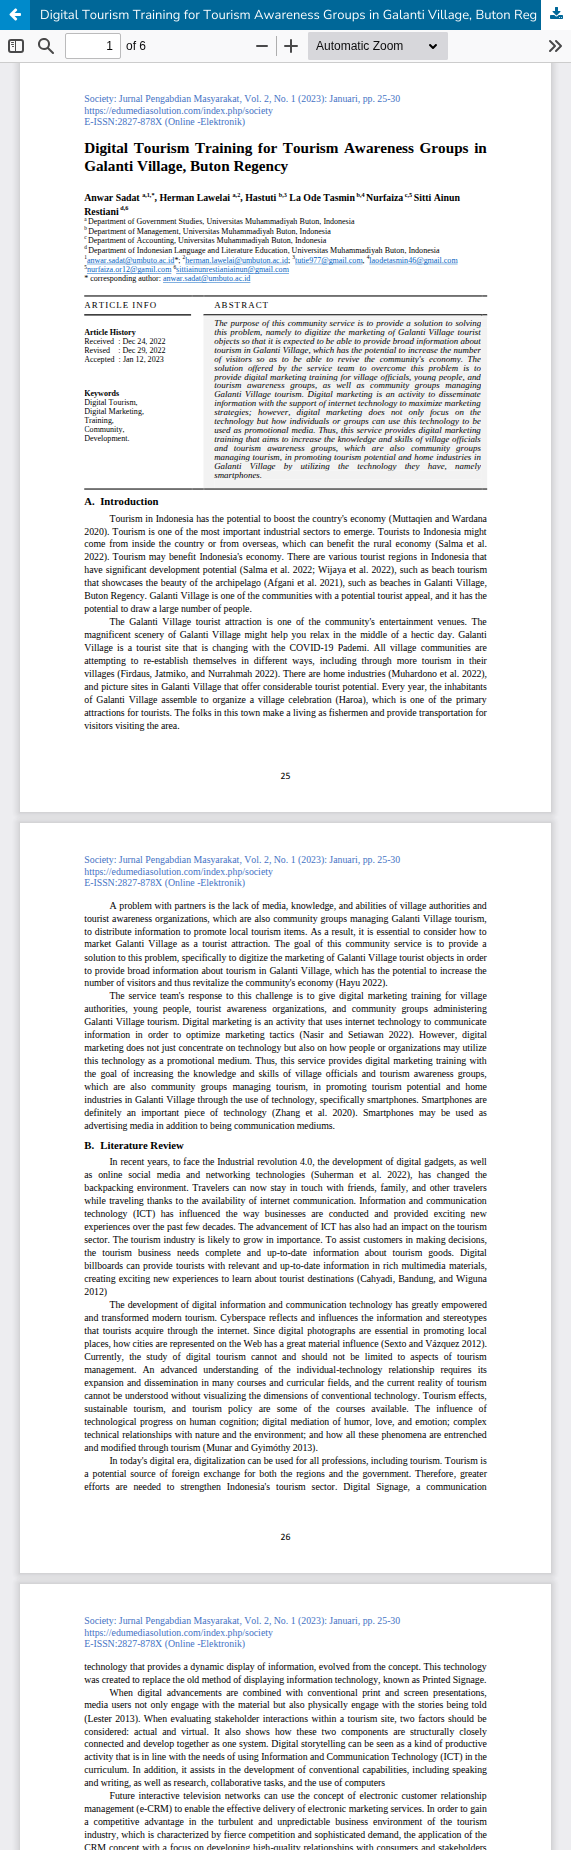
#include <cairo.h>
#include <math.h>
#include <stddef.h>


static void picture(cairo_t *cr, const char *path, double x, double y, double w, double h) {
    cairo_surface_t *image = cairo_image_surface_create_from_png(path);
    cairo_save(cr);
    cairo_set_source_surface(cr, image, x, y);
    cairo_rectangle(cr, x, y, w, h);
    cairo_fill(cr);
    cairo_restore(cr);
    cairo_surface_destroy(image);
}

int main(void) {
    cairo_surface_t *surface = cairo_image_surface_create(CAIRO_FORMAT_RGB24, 571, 1850);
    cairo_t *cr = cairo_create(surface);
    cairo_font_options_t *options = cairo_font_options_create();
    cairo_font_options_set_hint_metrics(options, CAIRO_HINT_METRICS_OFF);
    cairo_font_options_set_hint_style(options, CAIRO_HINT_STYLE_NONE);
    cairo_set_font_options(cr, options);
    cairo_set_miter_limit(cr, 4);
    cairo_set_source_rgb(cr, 1, 1, 1);
    cairo_paint(cr);
    cairo_set_source_rgb(cr, 0, 0.404, 0.596);
    cairo_rectangle(cr, 30, 0, 511, 30);
    cairo_fill(cr);
    cairo_set_source_rgb(cr, 0, 0.541, 0.796);
    cairo_rectangle(cr, 0, 0, 30, 30);
    cairo_fill(cr);
    picture(cr, "img1.png", 9, 8, 12, 13);
    cairo_select_font_face(cr, "Nunito Sans", CAIRO_FONT_SLANT_NORMAL, CAIRO_FONT_WEIGHT_NORMAL);
    cairo_set_font_size(cr, 13);
    cairo_set_source_rgb(cr, 1, 1, 1);
    cairo_move_to(cr, 40, 19);
    cairo_show_text(cr, "Digital Tourism Training for Tourism Awareness Groups in Galanti Village, Buton Reg");
    picture(cr, "img2.png", 550, 7, 13, 12);
    picture(cr, "img3.png", 0, 30, 571, 1820);
    cairo_surface_write_to_png(surface, "page.png");
    cairo_font_options_destroy(options);
    cairo_destroy(cr);
    cairo_surface_destroy(surface);
    return 0;
}
